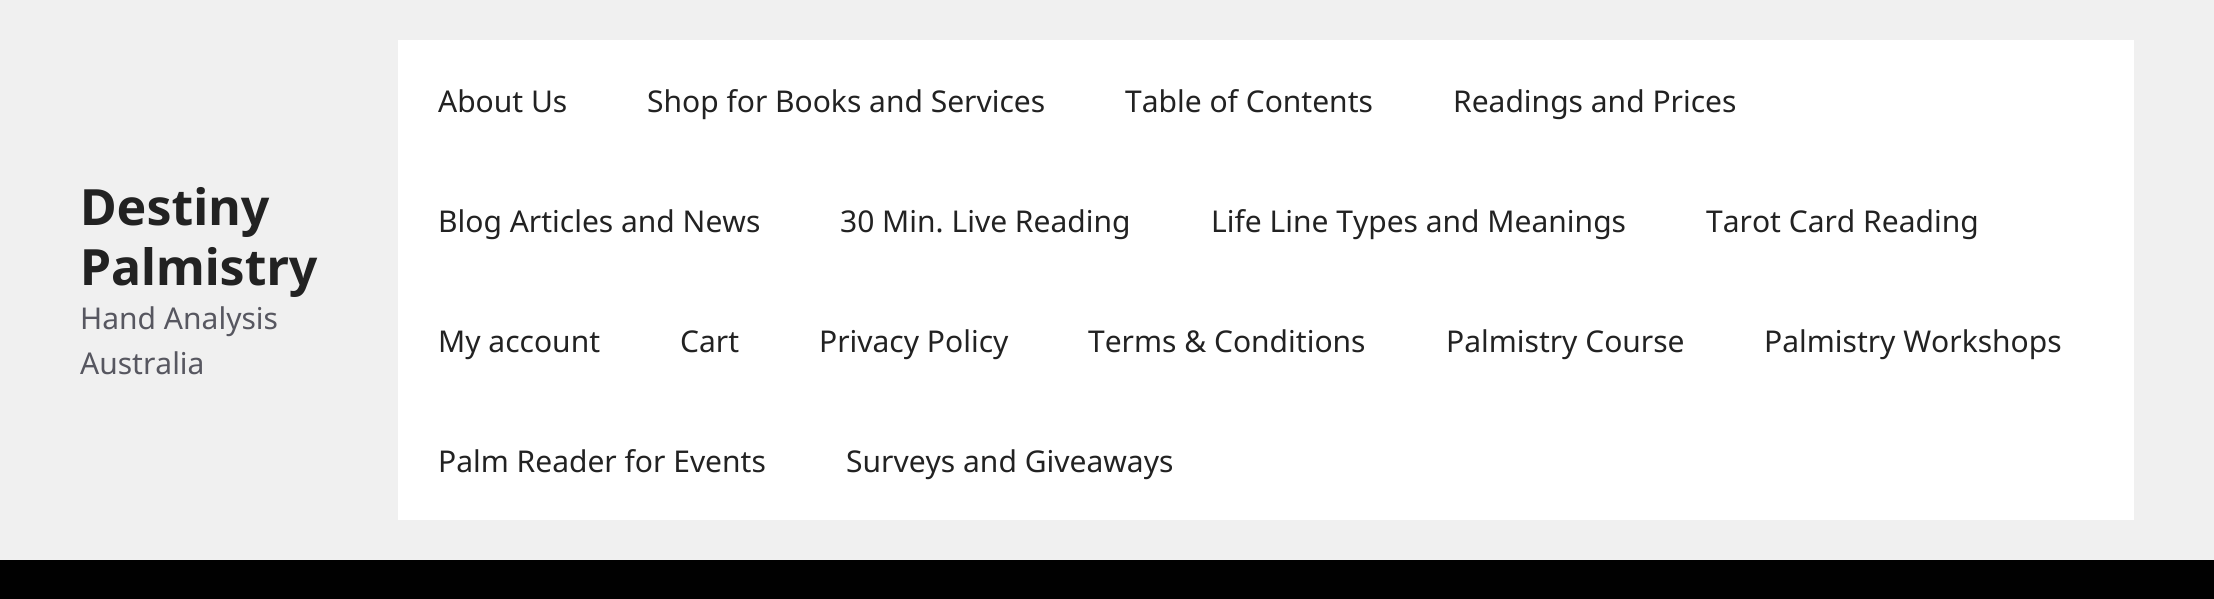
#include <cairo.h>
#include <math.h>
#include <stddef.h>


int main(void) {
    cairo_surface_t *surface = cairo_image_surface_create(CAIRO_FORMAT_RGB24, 2214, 599);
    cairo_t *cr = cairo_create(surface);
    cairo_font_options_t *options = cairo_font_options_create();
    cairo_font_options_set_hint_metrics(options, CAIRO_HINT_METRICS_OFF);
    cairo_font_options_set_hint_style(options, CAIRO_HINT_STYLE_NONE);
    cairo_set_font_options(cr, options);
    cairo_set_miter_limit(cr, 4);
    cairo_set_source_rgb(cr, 0.004, 0.004, 0.004);
    cairo_paint(cr);
    cairo_set_source_rgb(cr, 0.941, 0.941, 0.941);
    cairo_rectangle(cr, 0, 0, 2214, 560);
    cairo_fill(cr);
    cairo_select_font_face(cr, "Noto Sans", CAIRO_FONT_SLANT_NORMAL, CAIRO_FONT_WEIGHT_BOLD);
    cairo_set_font_size(cr, 50);
    cairo_set_source_rgb(cr, 0.133, 0.133, 0.133);
    cairo_move_to(cr, 80, 225);
    cairo_show_text(cr, "Destiny");
    cairo_move_to(cr, 80, 285);
    cairo_show_text(cr, "Palmistry");
    cairo_select_font_face(cr, "Noto Sans", CAIRO_FONT_SLANT_NORMAL, CAIRO_FONT_WEIGHT_NORMAL);
    cairo_set_font_size(cr, 30);
    cairo_set_source_rgb(cr, 0.341, 0.341, 0.376);
    cairo_move_to(cr, 80, 329);
    cairo_show_text(cr, "Hand Analysis");
    cairo_move_to(cr, 80, 374);
    cairo_show_text(cr, "Australia");
    cairo_set_source_rgb(cr, 1, 1, 1);
    cairo_rectangle(cr, 398, 40, 1736, 480);
    cairo_fill(cr);
    cairo_set_source_rgb(cr, 0.133, 0.133, 0.133);
    cairo_move_to(cr, 438, 112);
    cairo_show_text(cr, "About Us");
    cairo_move_to(cr, 647, 112);
    cairo_show_text(cr, "Shop for Books and Services");
    cairo_move_to(cr, 1125, 112);
    cairo_show_text(cr, "Table of Contents");
    cairo_move_to(cr, 1453, 112);
    cairo_show_text(cr, "Readings and Prices");
    cairo_move_to(cr, 438, 232);
    cairo_show_text(cr, "Blog Articles and News");
    cairo_move_to(cr, 840, 232);
    cairo_show_text(cr, "30 Min. Live Reading");
    cairo_move_to(cr, 1211, 232);
    cairo_show_text(cr, "Life Line Types and Meanings");
    cairo_move_to(cr, 1706, 232);
    cairo_show_text(cr, "Tarot Card Reading");
    cairo_move_to(cr, 438, 352);
    cairo_show_text(cr, "My account");
    cairo_move_to(cr, 680, 352);
    cairo_show_text(cr, "Cart");
    cairo_move_to(cr, 819, 352);
    cairo_show_text(cr, "Privacy Policy");
    cairo_move_to(cr, 1088, 352);
    cairo_show_text(cr, "Terms & Conditions");
    cairo_move_to(cr, 1446, 352);
    cairo_show_text(cr, "Palmistry Course");
    cairo_move_to(cr, 1764, 352);
    cairo_show_text(cr, "Palmistry Workshops");
    cairo_move_to(cr, 438, 472);
    cairo_show_text(cr, "Palm Reader for Events");
    cairo_move_to(cr, 846, 472);
    cairo_show_text(cr, "Surveys and Giveaways");
    cairo_surface_write_to_png(surface, "page.png");
    cairo_font_options_destroy(options);
    cairo_destroy(cr);
    cairo_surface_destroy(surface);
    return 0;
}
